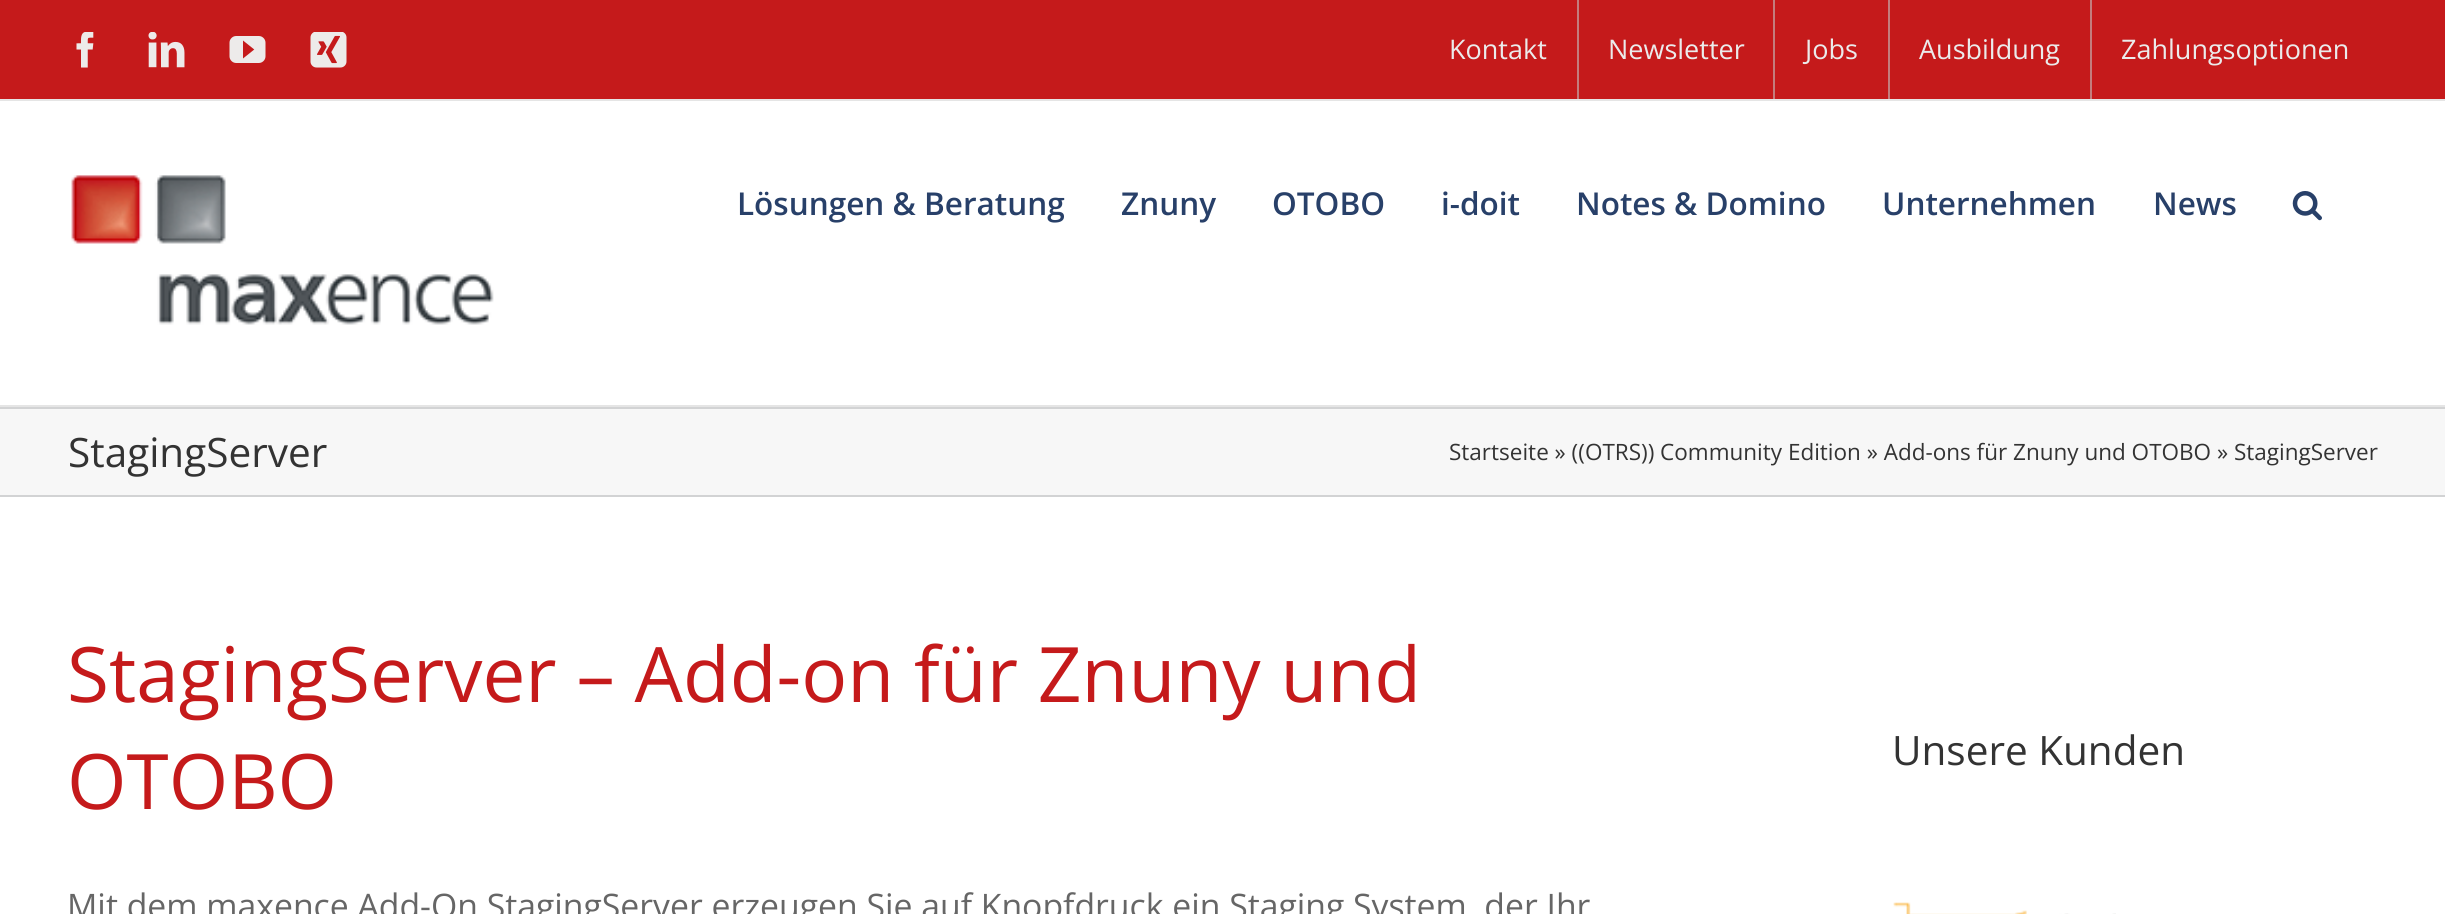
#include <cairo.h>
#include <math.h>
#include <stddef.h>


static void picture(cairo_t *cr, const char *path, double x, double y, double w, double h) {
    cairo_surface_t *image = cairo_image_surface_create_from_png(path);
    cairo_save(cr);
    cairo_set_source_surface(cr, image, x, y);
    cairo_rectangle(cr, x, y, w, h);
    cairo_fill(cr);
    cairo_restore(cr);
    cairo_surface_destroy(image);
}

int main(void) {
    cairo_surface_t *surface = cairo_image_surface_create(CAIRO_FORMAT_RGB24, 2445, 914);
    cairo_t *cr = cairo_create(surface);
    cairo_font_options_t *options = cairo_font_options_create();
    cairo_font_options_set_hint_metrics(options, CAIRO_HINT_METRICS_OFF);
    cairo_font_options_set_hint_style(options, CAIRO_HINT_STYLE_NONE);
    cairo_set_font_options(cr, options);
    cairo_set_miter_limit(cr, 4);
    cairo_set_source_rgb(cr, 1, 1, 1);
    cairo_paint(cr);
    cairo_set_source_rgb(cr, 0.773, 0.102, 0.106);
    cairo_rectangle(cr, 0, 0, 2445, 99);
    cairo_fill(cr);
    cairo_set_source_rgb(cr, 0.898, 0.898, 0.898);
    cairo_rectangle(cr, 0, 99, 2445, 2);
    cairo_fill(cr);
    picture(cr, "img1.png", 76, 32, 18, 36);
    picture(cr, "img2.png", 148, 32, 37, 36);
    picture(cr, "img3.png", 229, 36, 37, 27);
    picture(cr, "img4.png", 310, 32, 37, 36);
    cairo_select_font_face(cr, "Open Sans", CAIRO_FONT_SLANT_NORMAL, CAIRO_FONT_WEIGHT_NORMAL);
    cairo_set_font_size(cr, 27);
    cairo_set_source_rgb(cr, 0.918, 0.918, 0.918);
    cairo_move_to(cr, 1449, 59);
    cairo_show_text(cr, "Kontakt");
    cairo_set_source_rgb(cr, 0.769, 0.49, 0.49);
    cairo_rectangle(cr, 1577, 0, 2, 99);
    cairo_fill(cr);
    cairo_set_source_rgb(cr, 0.918, 0.918, 0.918);
    cairo_move_to(cr, 1608, 59);
    cairo_show_text(cr, "Newsletter");
    cairo_set_source_rgb(cr, 0.769, 0.49, 0.49);
    cairo_rectangle(cr, 1773, 0, 2, 99);
    cairo_fill(cr);
    cairo_set_source_rgb(cr, 0.918, 0.918, 0.918);
    cairo_move_to(cr, 1805, 59);
    cairo_show_text(cr, "Jobs");
    cairo_set_source_rgb(cr, 0.769, 0.49, 0.49);
    cairo_rectangle(cr, 1888, 0, 2, 99);
    cairo_fill(cr);
    cairo_set_source_rgb(cr, 0.918, 0.918, 0.918);
    cairo_move_to(cr, 1919, 59);
    cairo_show_text(cr, "Ausbildung");
    cairo_set_source_rgb(cr, 0.769, 0.49, 0.49);
    cairo_rectangle(cr, 2090, 0, 2, 99);
    cairo_fill(cr);
    cairo_set_source_rgb(cr, 0.918, 0.918, 0.918);
    cairo_move_to(cr, 2121, 59);
    cairo_show_text(cr, "Zahlungsoptionen");
    cairo_set_source_rgb(cr, 0.898, 0.898, 0.898);
    cairo_rectangle(cr, 0, 405, 2445, 2);
    cairo_fill(cr);
    picture(cr, "img5.png", 71, 175, 423, 150);
    cairo_select_font_face(cr, "Open Sans SemiBold", CAIRO_FONT_SLANT_NORMAL, CAIRO_FONT_WEIGHT_NORMAL);
    cairo_set_font_size(cr, 31.5);
    cairo_set_source_rgb(cr, 0.157, 0.251, 0.412);
    cairo_move_to(cr, 737, 215);
    cairo_show_text(cr, "Lösungen & Beratung");
    cairo_move_to(cr, 1121, 215);
    cairo_show_text(cr, "Znuny");
    cairo_move_to(cr, 1272, 215);
    cairo_show_text(cr, "OTOBO");
    cairo_move_to(cr, 1441, 215);
    cairo_show_text(cr, "i-doit");
    cairo_move_to(cr, 1576, 215);
    cairo_show_text(cr, "Notes & Domino");
    cairo_move_to(cr, 1882, 215);
    cairo_show_text(cr, "Unternehmen");
    cairo_move_to(cr, 2153, 215);
    cairo_show_text(cr, "News");
    picture(cr, "img6.png", 2292, 191, 30, 30);
    cairo_set_source_rgb(cr, 0.965, 0.965, 0.965);
    cairo_rectangle(cr, 0, 409, 2445, 86);
    cairo_fill(cr);
    cairo_set_source_rgb(cr, 0.824, 0.827, 0.831);
    cairo_rectangle(cr, 0, 407, 2445, 2);
    cairo_fill(cr);
    cairo_rectangle(cr, 0, 495, 2445, 2);
    cairo_fill(cr);
    cairo_select_font_face(cr, "Open Sans", CAIRO_FONT_SLANT_NORMAL, CAIRO_FONT_WEIGHT_NORMAL);
    cairo_set_font_size(cr, 40.5);
    cairo_set_source_rgb(cr, 0.2, 0.2, 0.2);
    cairo_move_to(cr, 68, 467);
    cairo_show_text(cr, "StagingServer");
    cairo_set_font_size(cr, 22.5);
    cairo_move_to(cr, 1449, 460);
    cairo_show_text(cr, "Startseite » ((OTRS)) Community Edition » Add-ons für Znuny und OTOBO » StagingServer");
    cairo_set_font_size(cr, 76.5);
    cairo_set_source_rgb(cr, 0.773, 0.102, 0.106);
    cairo_move_to(cr, 67, 702);
    cairo_show_text(cr, "StagingServer – Add-on für Znuny und");
    cairo_move_to(cr, 67, 809);
    cairo_show_text(cr, "OTOBO");
    cairo_set_font_size(cr, 33.75);
    cairo_set_source_rgb(cr, 0.4, 0.4, 0.4);
    cairo_move_to(cr, 67, 918);
    cairo_show_text(cr, "Mit dem maxence Add-On StagingServer erzeugen Sie auf Knopfdruck ein Staging System, der Ihr");
    cairo_set_font_size(cr, 40.5);
    cairo_set_source_rgb(cr, 0.2, 0.2, 0.2);
    cairo_move_to(cr, 1892, 765);
    cairo_show_text(cr, "Unsere Kunden");
    picture(cr, "img7.png", 1893, 902, 223, 12);
    cairo_surface_write_to_png(surface, "page.png");
    cairo_font_options_destroy(options);
    cairo_destroy(cr);
    cairo_surface_destroy(surface);
    return 0;
}
